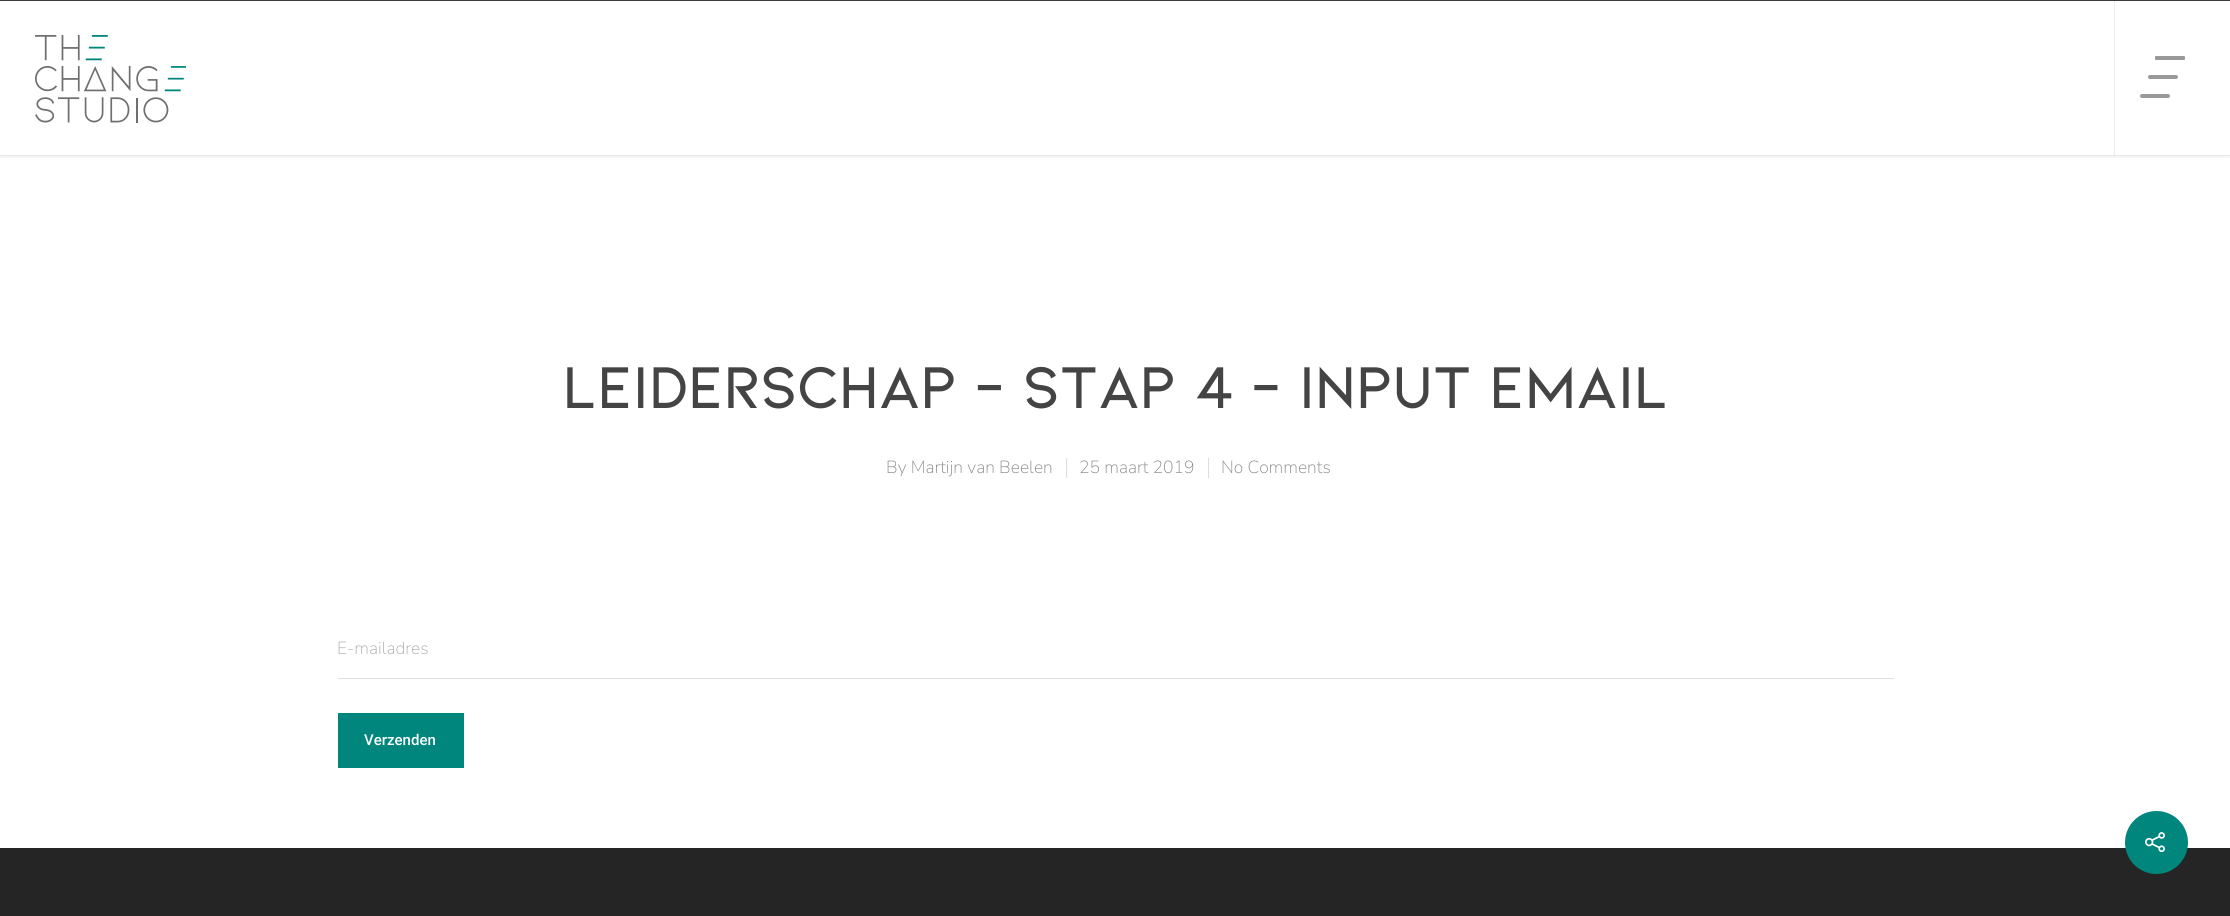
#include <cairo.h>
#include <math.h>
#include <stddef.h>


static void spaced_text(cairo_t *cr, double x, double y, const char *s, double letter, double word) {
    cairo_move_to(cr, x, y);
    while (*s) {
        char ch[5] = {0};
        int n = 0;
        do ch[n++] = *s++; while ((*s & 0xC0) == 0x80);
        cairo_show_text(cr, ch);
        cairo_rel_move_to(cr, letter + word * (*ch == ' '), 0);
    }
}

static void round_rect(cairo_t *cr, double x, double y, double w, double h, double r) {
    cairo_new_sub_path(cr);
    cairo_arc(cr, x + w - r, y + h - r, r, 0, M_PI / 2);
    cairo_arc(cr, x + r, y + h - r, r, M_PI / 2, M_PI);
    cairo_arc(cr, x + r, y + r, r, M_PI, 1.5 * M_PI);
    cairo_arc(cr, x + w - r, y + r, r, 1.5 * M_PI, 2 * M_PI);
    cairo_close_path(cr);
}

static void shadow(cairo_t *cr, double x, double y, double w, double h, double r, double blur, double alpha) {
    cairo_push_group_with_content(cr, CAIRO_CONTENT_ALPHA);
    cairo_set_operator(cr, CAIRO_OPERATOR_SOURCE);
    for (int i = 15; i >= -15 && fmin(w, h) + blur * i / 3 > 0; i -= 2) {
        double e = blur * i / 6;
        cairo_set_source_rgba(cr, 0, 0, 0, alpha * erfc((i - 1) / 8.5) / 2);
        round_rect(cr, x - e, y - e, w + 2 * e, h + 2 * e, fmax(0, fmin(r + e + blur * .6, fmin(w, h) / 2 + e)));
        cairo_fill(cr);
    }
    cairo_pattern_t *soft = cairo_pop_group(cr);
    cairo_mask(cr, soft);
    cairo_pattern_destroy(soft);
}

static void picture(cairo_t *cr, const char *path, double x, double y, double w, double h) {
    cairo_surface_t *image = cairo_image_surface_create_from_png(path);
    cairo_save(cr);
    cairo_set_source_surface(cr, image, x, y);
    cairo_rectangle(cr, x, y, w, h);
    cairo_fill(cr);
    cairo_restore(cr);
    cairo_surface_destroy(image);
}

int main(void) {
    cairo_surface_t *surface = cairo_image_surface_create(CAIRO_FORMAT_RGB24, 2230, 916);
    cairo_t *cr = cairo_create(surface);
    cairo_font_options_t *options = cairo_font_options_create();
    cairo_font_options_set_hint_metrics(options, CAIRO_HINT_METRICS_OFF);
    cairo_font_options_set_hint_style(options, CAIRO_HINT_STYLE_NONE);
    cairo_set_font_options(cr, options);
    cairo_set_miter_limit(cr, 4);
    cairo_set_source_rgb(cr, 0.145, 0.145, 0.145);
    cairo_paint(cr);
    cairo_set_source_rgb(cr, 1, 1, 1);
    cairo_rectangle(cr, 0, 1, 2230, 847);
    cairo_fill(cr);
    cairo_save(cr);
    cairo_rectangle(cr, 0, 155, 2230, 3);
    cairo_clip(cr);
    cairo_set_source_rgb(cr, 0, 0, 0);
    shadow(cr, 0, 0, 2230, 155, 0, 2, 0.22);
    cairo_restore(cr);
    picture(cr, "img1.png", 35, 35, 151, 88);
    cairo_set_source_rgba(cr, 0, 0, 0, 0.07);
    cairo_rectangle(cr, 2114, 0, 1, 156);
    cairo_fill(cr);
    cairo_set_source_rgb(cr, 0.6, 0.6, 0.6);
    round_rect(cr, 2155, 56, 30, 4, 1);
    cairo_fill(cr);
    round_rect(cr, 2140, 94, 30, 4, 2);
    cairo_fill(cr);
    round_rect(cr, 2148, 75, 30, 4, 2);
    cairo_fill(cr);
    cairo_set_source_rgb(cr, 0.239, 0.239, 0.239);
    cairo_rectangle(cr, 0, 0, 2230, 1);
    cairo_fill(cr);
    cairo_select_font_face(cr, "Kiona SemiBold", CAIRO_FONT_SLANT_NORMAL, CAIRO_FONT_WEIGHT_NORMAL);
    cairo_set_font_size(cr, 62.5);
    cairo_set_source_rgb(cr, 0.267, 0.267, 0.267);
    spaced_text(cr, 562, 408, "Leiderschap – Stap 4 – Input email", -1.25, 0);
    cairo_select_font_face(cr, "Nunito ExtraLight", CAIRO_FONT_SLANT_NORMAL, CAIRO_FONT_WEIGHT_NORMAL);
    cairo_set_font_size(cr, 17.5);
    cairo_set_source_rgb(cr, 0.533, 0.533, 0.533);
    cairo_move_to(cr, 886, 473);
    cairo_show_text(cr, "By Martijn van Beelen");
    cairo_set_source_rgb(cr, 0.867, 0.867, 0.867);
    cairo_rectangle(cr, 1066, 458, 1, 20);
    cairo_fill(cr);
    cairo_set_source_rgb(cr, 0.533, 0.533, 0.533);
    cairo_move_to(cr, 1079, 473);
    cairo_show_text(cr, "25 maart 2019");
    cairo_set_source_rgb(cr, 0.867, 0.867, 0.867);
    cairo_rectangle(cr, 1208, 458, 1, 20);
    cairo_fill(cr);
    cairo_set_source_rgb(cr, 0.533, 0.533, 0.533);
    cairo_move_to(cr, 1221, 473);
    cairo_show_text(cr, "No Comments");
    cairo_set_source_rgb(cr, 0.675, 0.675, 0.675);
    cairo_move_to(cr, 337, 654);
    cairo_show_text(cr, "E-mailadres");
    cairo_set_source_rgb(cr, 0.878, 0.878, 0.878);
    cairo_rectangle(cr, 338, 678, 1556, 1);
    cairo_fill(cr);
    cairo_set_source_rgb(cr, 0, 0.525, 0.486);
    cairo_rectangle(cr, 338, 713, 126, 55);
    cairo_fill(cr);
    cairo_select_font_face(cr, "Roboto Medium", CAIRO_FONT_SLANT_NORMAL, CAIRO_FONT_WEIGHT_NORMAL);
    cairo_set_font_size(cr, 15);
    cairo_set_source_rgb(cr, 1, 1, 1);
    cairo_move_to(cr, 364, 745);
    cairo_show_text(cr, "Verzenden");
    cairo_set_source_rgb(cr, 0, 0.525, 0.486);
    cairo_new_path(cr);
    cairo_arc(cr, 2156.5, 842.5, 31.5, 0, 2 * M_PI);
    cairo_fill(cr);
    picture(cr, "img2.png", 2145, 832, 20, 21);
    cairo_surface_write_to_png(surface, "page.png");
    cairo_font_options_destroy(options);
    cairo_destroy(cr);
    cairo_surface_destroy(surface);
    return 0;
}
